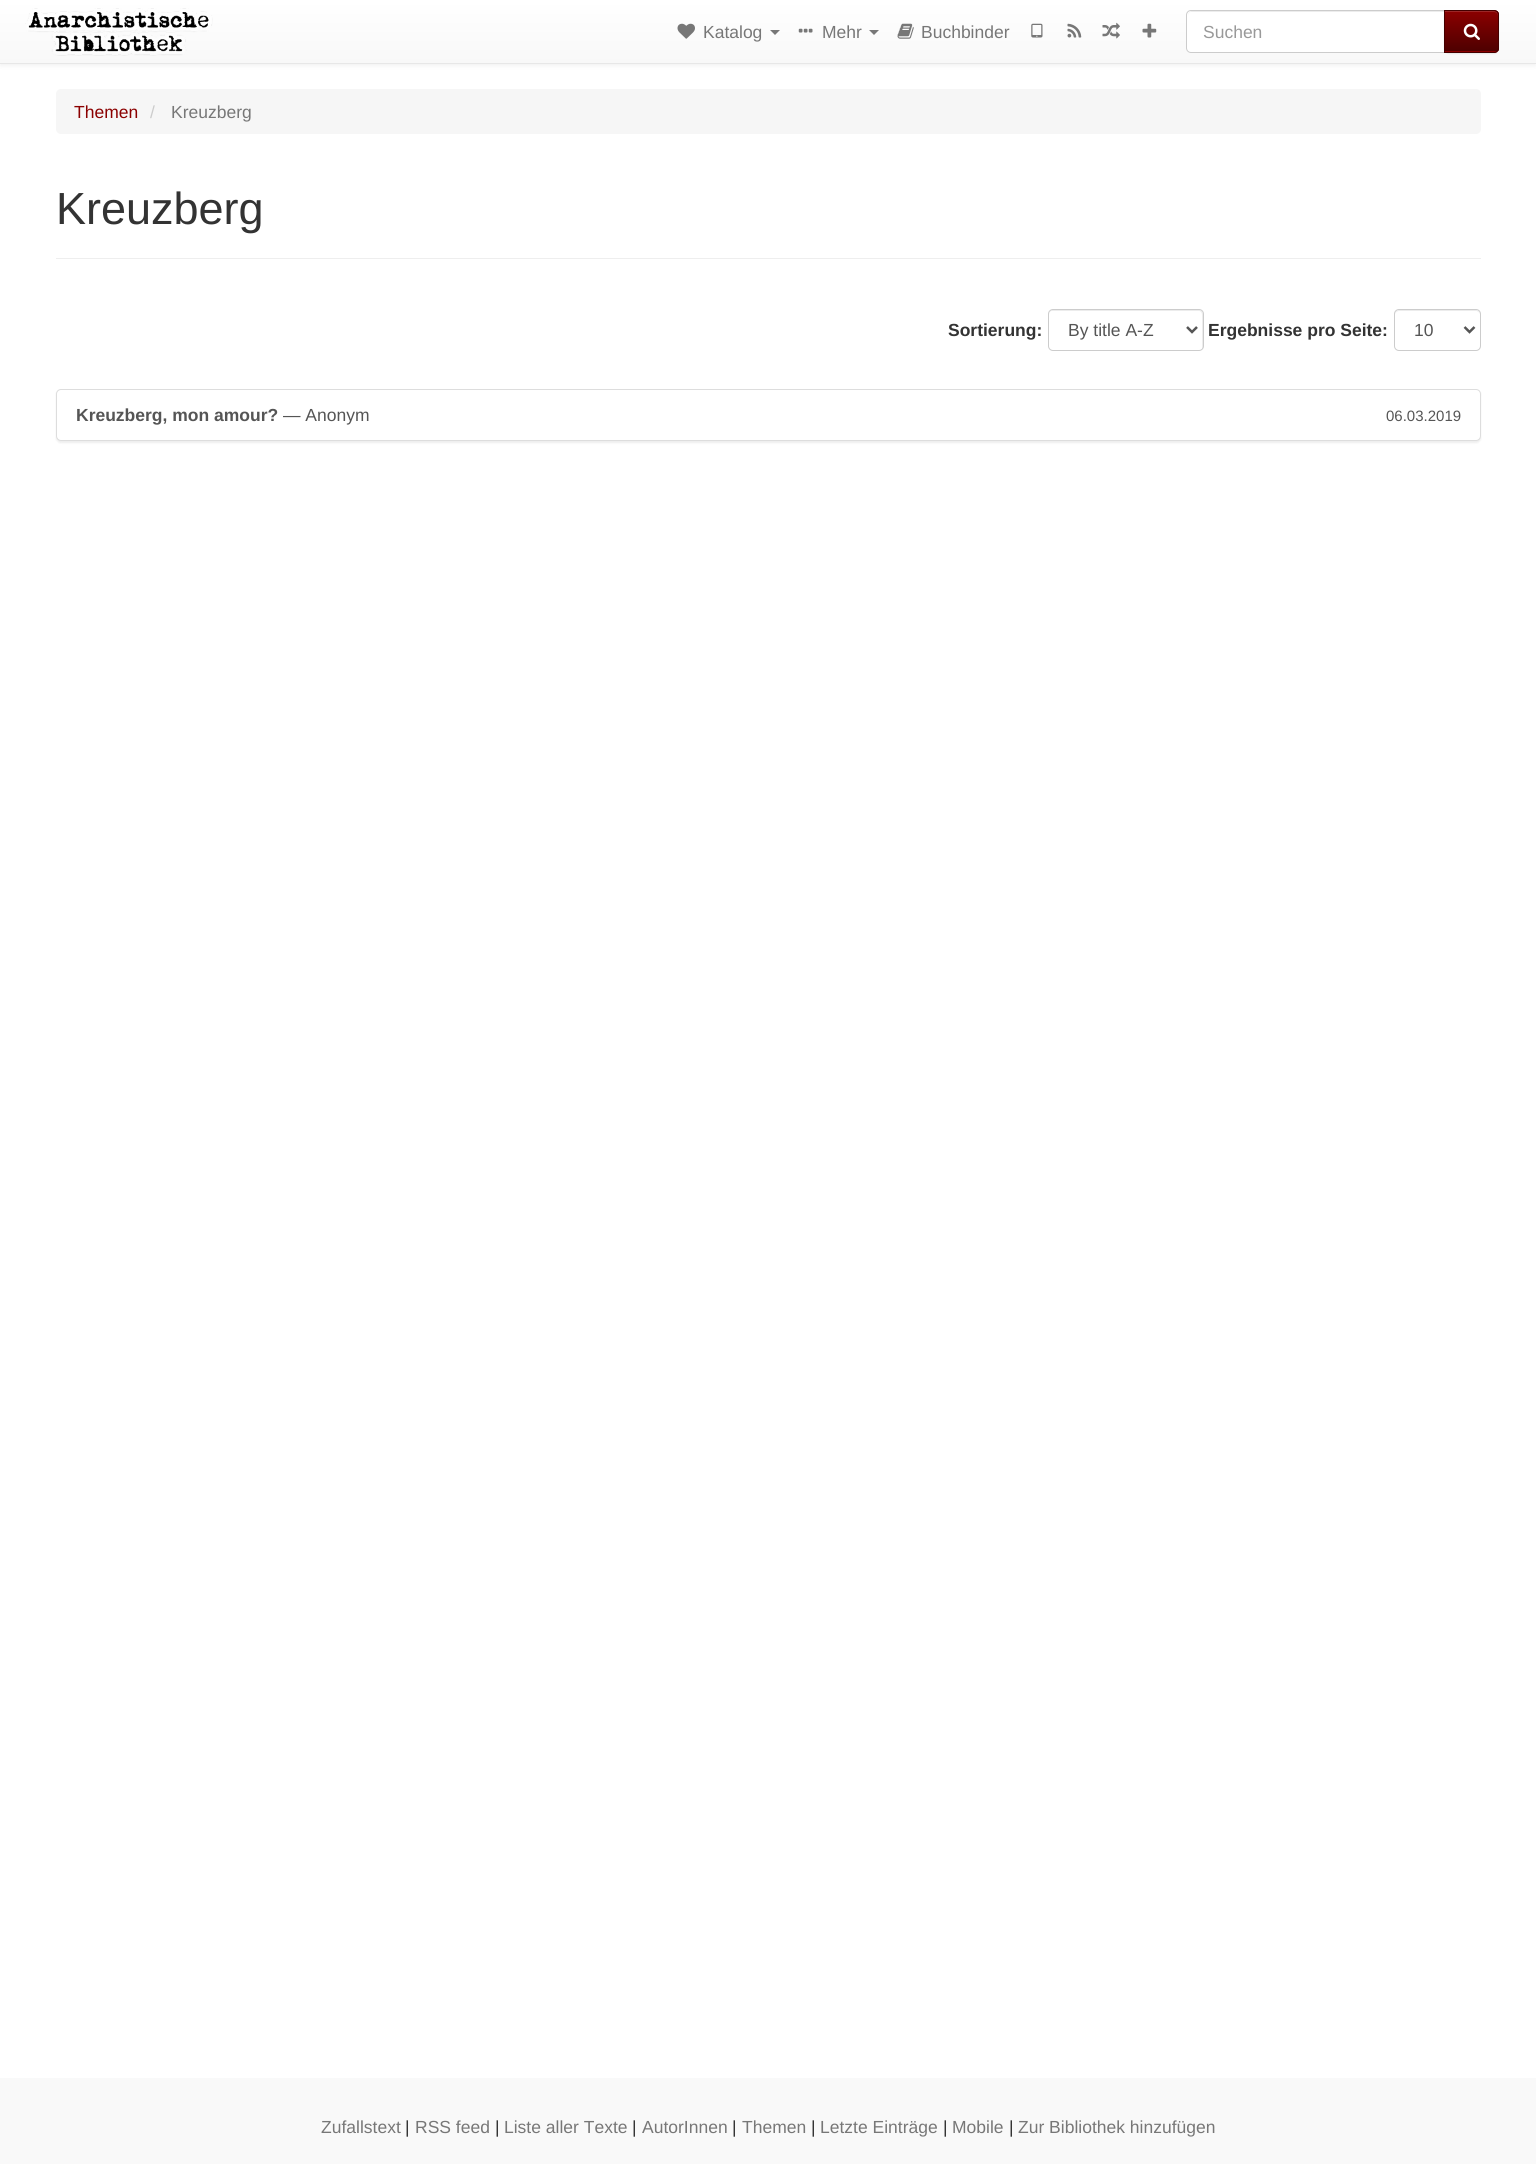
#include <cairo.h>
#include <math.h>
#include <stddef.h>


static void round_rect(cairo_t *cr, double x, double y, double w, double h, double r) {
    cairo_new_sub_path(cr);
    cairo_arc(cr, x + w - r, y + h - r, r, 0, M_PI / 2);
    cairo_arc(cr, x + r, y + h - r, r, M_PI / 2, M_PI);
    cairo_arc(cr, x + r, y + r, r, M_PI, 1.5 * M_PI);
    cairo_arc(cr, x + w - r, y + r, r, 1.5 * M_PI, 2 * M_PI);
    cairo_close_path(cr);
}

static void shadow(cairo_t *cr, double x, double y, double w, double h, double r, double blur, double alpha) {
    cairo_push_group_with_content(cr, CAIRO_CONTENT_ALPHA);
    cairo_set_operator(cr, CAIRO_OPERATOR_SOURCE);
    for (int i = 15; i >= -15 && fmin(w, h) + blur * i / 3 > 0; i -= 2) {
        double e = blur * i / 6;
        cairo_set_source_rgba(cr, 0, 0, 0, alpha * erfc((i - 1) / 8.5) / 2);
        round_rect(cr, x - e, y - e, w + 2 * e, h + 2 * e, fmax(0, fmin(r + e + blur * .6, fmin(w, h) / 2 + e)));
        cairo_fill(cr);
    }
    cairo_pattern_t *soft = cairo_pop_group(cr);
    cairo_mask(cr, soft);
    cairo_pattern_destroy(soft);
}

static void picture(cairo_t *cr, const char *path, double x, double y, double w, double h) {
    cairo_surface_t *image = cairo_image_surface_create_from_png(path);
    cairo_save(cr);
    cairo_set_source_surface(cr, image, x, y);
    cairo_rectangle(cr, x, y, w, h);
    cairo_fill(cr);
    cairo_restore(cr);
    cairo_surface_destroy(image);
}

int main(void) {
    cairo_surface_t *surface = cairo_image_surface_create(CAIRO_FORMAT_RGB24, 1536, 2164);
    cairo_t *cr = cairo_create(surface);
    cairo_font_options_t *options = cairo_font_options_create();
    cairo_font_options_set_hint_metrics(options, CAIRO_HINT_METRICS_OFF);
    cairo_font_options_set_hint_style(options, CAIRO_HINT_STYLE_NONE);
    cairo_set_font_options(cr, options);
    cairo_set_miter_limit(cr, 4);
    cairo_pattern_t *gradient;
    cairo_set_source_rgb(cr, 1, 1, 1);
    cairo_paint(cr);
    cairo_set_source_rgb(cr, 0, 0, 0);
    shadow(cr, 0, 1, 1536, 64, 0, 3, 0.07);
    gradient = cairo_pattern_create_linear(768, 0, 768, 63);
    cairo_pattern_add_color_stop_rgba(gradient, 0, 1, 1, 1, 1);
    cairo_pattern_add_color_stop_rgba(gradient, 1, 0.973, 0.973, 0.973, 1);
    cairo_set_source(cr, gradient);
    cairo_pattern_destroy(gradient);
    cairo_rectangle(cr, 0, 0, 1536, 63);
    cairo_fill(cr);
    cairo_set_source_rgb(cr, 0.906, 0.906, 0.906);
    cairo_rectangle(cr, 0, 63, 1536, 1);
    cairo_fill(cr);
    picture(cr, "img1.png", 25, 8, 188, 48);
    picture(cr, "img2.png", 677, 23, 18, 16);
    cairo_select_font_face(cr, "Liberation Sans", CAIRO_FONT_SLANT_NORMAL, CAIRO_FONT_WEIGHT_NORMAL);
    cairo_set_font_size(cr, 17.5);
    cairo_set_source_rgb(cr, 0.467, 0.467, 0.467);
    cairo_move_to(cr, 703, 38);
    cairo_show_text(cr, "Katalog");
    cairo_new_path(cr);
    cairo_move_to(cr, 770, 30);
    cairo_line_to(cr, 780, 30);
    cairo_line_to(cr, 775, 35);
    cairo_close_path(cr);
    cairo_fill(cr);
    picture(cr, "img3.png", 798, 28, 15, 5);
    cairo_move_to(cr, 822, 38);
    cairo_show_text(cr, "Mehr");
    cairo_new_path(cr);
    cairo_move_to(cr, 869, 30);
    cairo_line_to(cr, 879, 30);
    cairo_line_to(cr, 874, 35);
    cairo_close_path(cr);
    cairo_fill(cr);
    picture(cr, "img4.png", 897, 23, 17, 16);
    cairo_move_to(cr, 921, 38);
    cairo_show_text(cr, "Buchbinder");
    picture(cr, "img5.png", 1031, 23, 12, 15);
    picture(cr, "img6.png", 1067, 23, 15, 15);
    picture(cr, "img7.png", 1102, 22, 18, 17);
    picture(cr, "img8.png", 1142, 23, 15, 15);
    cairo_set_source_rgb(cr, 1, 1, 1);
    cairo_new_path(cr);
    cairo_move_to(cr, 1191, 10);
    cairo_line_to(cr, 1445, 10);
    cairo_line_to(cr, 1445, 53);
    cairo_line_to(cr, 1191, 53);
    cairo_curve_to(cr, 1188, 53, 1186, 51, 1186, 48);
    cairo_line_to(cr, 1186, 15);
    cairo_curve_to(cr, 1186, 12, 1188, 10, 1191, 10);
    cairo_close_path(cr);
    cairo_fill(cr);
    cairo_set_source_rgb(cr, 0.925, 0.925, 0.925);
    cairo_new_path(cr);
    cairo_move_to(cr, 1191, 12);
    cairo_line_to(cr, 1444, 12);
    cairo_line_to(cr, 1444, 11);
    cairo_line_to(cr, 1192, 11);
    cairo_curve_to(cr, 1190, 11, 1188, 13, 1188, 15);
    cairo_line_to(cr, 1188, 16);
    cairo_curve_to(cr, 1188, 14, 1189, 12, 1191, 12);
    cairo_close_path(cr);
    cairo_fill(cr);
    cairo_new_path(cr);
    cairo_move_to(cr, 1191, 10.5);
    cairo_line_to(cr, 1444.5, 10.5);
    cairo_line_to(cr, 1444.5, 52.5);
    cairo_line_to(cr, 1191, 52.5);
    cairo_curve_to(cr, 1188.5, 52.5, 1186.5, 50.5, 1186.5, 48);
    cairo_line_to(cr, 1186.5, 15);
    cairo_curve_to(cr, 1186.5, 12.5, 1188.5, 10.5, 1191, 10.5);
    cairo_close_path(cr);
    cairo_set_source_rgb(cr, 0.8, 0.8, 0.8);
    cairo_set_line_width(cr, 1);
    cairo_stroke(cr);
    cairo_set_source_rgb(cr, 0.6, 0.6, 0.6);
    cairo_move_to(cr, 1203, 38);
    cairo_show_text(cr, "Suchen");
    cairo_set_source_rgb(cr, 0, 0, 0);
    shadow(cr, 1444, 11, 55, 43, 5, 0.5, 0.07);
    cairo_set_source_rgb(cr, 0.545, 0, 0);
    cairo_new_path(cr);
    cairo_move_to(cr, 1444, 10);
    cairo_line_to(cr, 1494, 10);
    cairo_curve_to(cr, 1497, 10, 1499, 12, 1499, 15);
    cairo_line_to(cr, 1499, 48);
    cairo_curve_to(cr, 1499, 51, 1497, 53, 1494, 53);
    cairo_line_to(cr, 1444, 53);
    cairo_close_path(cr);
    cairo_fill(cr);
    cairo_save(cr);
    cairo_new_path(cr);
    cairo_move_to(cr, 1444, 10);
    cairo_line_to(cr, 1494, 10);
    cairo_curve_to(cr, 1497, 10, 1499, 12, 1499, 15);
    cairo_line_to(cr, 1499, 48);
    cairo_curve_to(cr, 1499, 51, 1497, 53, 1494, 53);
    cairo_line_to(cr, 1444, 53);
    cairo_close_path(cr);
    cairo_clip(cr);
    gradient = cairo_pattern_create_linear(1471, 11, 1471, 51);
    cairo_pattern_add_color_stop_rgba(gradient, 0, 0.545, 0, 0, 1);
    cairo_pattern_add_color_stop_rgba(gradient, 1, 0.306, 0, 0, 1);
    cairo_set_source(cr, gradient);
    cairo_pattern_destroy(gradient);
    cairo_rectangle(cr, 1445, 11, 54, 40);
    cairo_fill(cr);
    cairo_restore(cr);
    cairo_set_source_rgba(cr, 1, 1, 1, 0.15);
    cairo_new_path(cr);
    cairo_move_to(cr, 1445, 12);
    cairo_line_to(cr, 1494, 12);
    cairo_curve_to(cr, 1496, 12, 1498, 14, 1498, 16);
    cairo_line_to(cr, 1498, 15);
    cairo_curve_to(cr, 1498, 13, 1496, 11, 1494, 11);
    cairo_line_to(cr, 1445, 11);
    cairo_close_path(cr);
    cairo_fill(cr);
    cairo_new_path(cr);
    cairo_move_to(cr, 1444.5, 10.5);
    cairo_line_to(cr, 1494, 10.5);
    cairo_curve_to(cr, 1496.5, 10.5, 1498.5, 12.5, 1498.5, 15);
    cairo_line_to(cr, 1498.5, 48);
    cairo_curve_to(cr, 1498.5, 50.5, 1496.5, 52.5, 1494, 52.5);
    cairo_line_to(cr, 1444.5, 52.5);
    cairo_close_path(cr);
    cairo_set_source_rgb(cr, 0.267, 0, 0);
    cairo_stroke(cr);
    picture(cr, "img9.png", 1463, 23, 17, 17);
    cairo_set_source_rgb(cr, 0.961, 0.961, 0.961);
    round_rect(cr, 56, 89, 1425, 45, 5);
    cairo_fill(cr);
    cairo_set_source_rgb(cr, 0.545, 0, 0);
    cairo_move_to(cr, 74, 118);
    cairo_show_text(cr, "Themen");
    cairo_set_source_rgb(cr, 0.8, 0.8, 0.8);
    cairo_move_to(cr, 150, 118);
    cairo_show_text(cr, "/");
    cairo_set_source_rgb(cr, 0.467, 0.467, 0.467);
    cairo_move_to(cr, 171, 118);
    cairo_show_text(cr, "Kreuzberg");
    cairo_set_source_rgb(cr, 0.933, 0.933, 0.933);
    cairo_rectangle(cr, 56, 258, 1425, 1);
    cairo_fill(cr);
    cairo_set_font_size(cr, 45);
    cairo_set_source_rgb(cr, 0.2, 0.2, 0.2);
    cairo_move_to(cr, 56, 224);
    cairo_show_text(cr, "Kreuzberg");
    cairo_select_font_face(cr, "Liberation Sans", CAIRO_FONT_SLANT_NORMAL, CAIRO_FONT_WEIGHT_BOLD);
    cairo_set_font_size(cr, 17.5);
    cairo_move_to(cr, 948, 336);
    cairo_show_text(cr, "Sortierung:");
    cairo_set_source_rgb(cr, 0.925, 0.925, 0.925);
    cairo_new_path(cr);
    cairo_move_to(cr, 1052, 311);
    cairo_line_to(cr, 1199, 311);
    cairo_curve_to(cr, 1201, 311, 1202, 313, 1202, 315);
    cairo_line_to(cr, 1202, 349);
    cairo_curve_to(cr, 1203, 348, 1203, 347, 1203, 346);
    cairo_line_to(cr, 1203, 314);
    cairo_curve_to(cr, 1203, 312, 1201, 310, 1199, 310);
    cairo_line_to(cr, 1053, 310);
    cairo_curve_to(cr, 1051, 310, 1049, 312, 1049, 314);
    cairo_line_to(cr, 1049, 315);
    cairo_curve_to(cr, 1049, 313, 1050, 311, 1052, 311);
    cairo_close_path(cr);
    cairo_fill(cr);
    round_rect(cr, 1048.5, 309.5, 155, 41, 4.5);
    cairo_set_source_rgb(cr, 0.8, 0.8, 0.8);
    cairo_stroke(cr);
    cairo_new_path(cr);
    cairo_move_to(cr, 1187, 327);
    cairo_line_to(cr, 1192, 332);
    cairo_line_to(cr, 1197, 327);
    cairo_set_source_rgb(cr, 0.333, 0.333, 0.333);
    cairo_set_line_width(cr, 2.5);
    cairo_stroke(cr);
    cairo_select_font_face(cr, "Liberation Sans", CAIRO_FONT_SLANT_NORMAL, CAIRO_FONT_WEIGHT_NORMAL);
    cairo_move_to(cr, 1068, 336);
    cairo_show_text(cr, "By title A-Z");
    cairo_select_font_face(cr, "Liberation Sans", CAIRO_FONT_SLANT_NORMAL, CAIRO_FONT_WEIGHT_BOLD);
    cairo_set_source_rgb(cr, 0.2, 0.2, 0.2);
    cairo_move_to(cr, 1208, 336);
    cairo_show_text(cr, "Ergebnisse pro Seite:");
    cairo_set_source_rgb(cr, 0.925, 0.925, 0.925);
    cairo_new_path(cr);
    cairo_move_to(cr, 1399, 311);
    cairo_line_to(cr, 1476, 311);
    cairo_curve_to(cr, 1478, 311, 1480, 313, 1480, 315);
    cairo_curve_to(cr, 1480, 307, 1468, 310, 1463, 310);
    cairo_line_to(cr, 1412, 310);
    cairo_curve_to(cr, 1407, 310, 1395, 307, 1395, 315);
    cairo_curve_to(cr, 1395, 313, 1397, 311, 1399, 311);
    cairo_close_path(cr);
    cairo_fill(cr);
    round_rect(cr, 1394.5, 309.5, 86, 41, 4.5);
    cairo_set_source_rgb(cr, 0.8, 0.8, 0.8);
    cairo_set_line_width(cr, 1);
    cairo_stroke(cr);
    cairo_new_path(cr);
    cairo_move_to(cr, 1464.5, 327);
    cairo_line_to(cr, 1469.5, 332);
    cairo_line_to(cr, 1474.5, 327);
    cairo_set_source_rgb(cr, 0.333, 0.333, 0.333);
    cairo_set_line_width(cr, 2.5);
    cairo_stroke(cr);
    cairo_select_font_face(cr, "Liberation Sans", CAIRO_FONT_SLANT_NORMAL, CAIRO_FONT_WEIGHT_NORMAL);
    cairo_move_to(cr, 1414, 336);
    cairo_show_text(cr, "10");
    cairo_set_source_rgb(cr, 0, 0, 0);
    shadow(cr, 56, 390, 1425, 53, 5, 1, 0.07);
    cairo_set_source_rgb(cr, 1, 1, 1);
    round_rect(cr, 56.5, 389.5, 1424, 51, 4.5);
    cairo_fill_preserve(cr);
    cairo_set_source_rgb(cr, 0.867, 0.867, 0.867);
    cairo_set_line_width(cr, 1);
    cairo_stroke(cr);
    cairo_select_font_face(cr, "Liberation Sans", CAIRO_FONT_SLANT_NORMAL, CAIRO_FONT_WEIGHT_BOLD);
    cairo_set_source_rgb(cr, 0.333, 0.333, 0.333);
    cairo_move_to(cr, 76, 421);
    cairo_show_text(cr, "Kreuzberg, mon amour?");
    cairo_select_font_face(cr, "Liberation Sans", CAIRO_FONT_SLANT_NORMAL, CAIRO_FONT_WEIGHT_NORMAL);
    cairo_move_to(cr, 283, 421);
    cairo_show_text(cr, "— Anonym");
    cairo_set_font_size(cr, 15);
    cairo_move_to(cr, 1386, 421);
    cairo_show_text(cr, "06.03.2019");
    cairo_set_source_rgb(cr, 0.973, 0.973, 0.973);
    cairo_rectangle(cr, 0, 2078, 1536, 86);
    cairo_fill(cr);
    cairo_set_font_size(cr, 17.5);
    cairo_set_source_rgb(cr, 0.467, 0.467, 0.467);
    cairo_move_to(cr, 321, 2133);
    cairo_show_text(cr, "Zufallstext");
    cairo_set_source_rgb(cr, 0.2, 0.2, 0.2);
    cairo_move_to(cr, 405, 2133);
    cairo_show_text(cr, "|");
    cairo_set_source_rgb(cr, 0.467, 0.467, 0.467);
    cairo_move_to(cr, 415, 2133);
    cairo_show_text(cr, "RSS feed");
    cairo_set_source_rgb(cr, 0.2, 0.2, 0.2);
    cairo_move_to(cr, 495, 2133);
    cairo_show_text(cr, "|");
    cairo_set_source_rgb(cr, 0.467, 0.467, 0.467);
    cairo_move_to(cr, 504, 2133);
    cairo_show_text(cr, "Liste aller Texte");
    cairo_set_source_rgb(cr, 0.2, 0.2, 0.2);
    cairo_move_to(cr, 632, 2133);
    cairo_show_text(cr, "|");
    cairo_set_source_rgb(cr, 0.467, 0.467, 0.467);
    cairo_move_to(cr, 642, 2133);
    cairo_show_text(cr, "AutorInnen");
    cairo_set_source_rgb(cr, 0.2, 0.2, 0.2);
    cairo_move_to(cr, 732, 2133);
    cairo_show_text(cr, "|");
    cairo_set_source_rgb(cr, 0.467, 0.467, 0.467);
    cairo_move_to(cr, 742, 2133);
    cairo_show_text(cr, "Themen");
    cairo_set_source_rgb(cr, 0.2, 0.2, 0.2);
    cairo_move_to(cr, 811, 2133);
    cairo_show_text(cr, "|");
    cairo_set_source_rgb(cr, 0.467, 0.467, 0.467);
    cairo_move_to(cr, 820, 2133);
    cairo_show_text(cr, "Letzte Einträge");
    cairo_set_source_rgb(cr, 0.2, 0.2, 0.2);
    cairo_move_to(cr, 943, 2133);
    cairo_show_text(cr, "|");
    cairo_set_source_rgb(cr, 0.467, 0.467, 0.467);
    cairo_move_to(cr, 952, 2133);
    cairo_show_text(cr, "Mobile");
    cairo_set_source_rgb(cr, 0.2, 0.2, 0.2);
    cairo_move_to(cr, 1009, 2133);
    cairo_show_text(cr, "|");
    cairo_set_source_rgb(cr, 0.467, 0.467, 0.467);
    cairo_move_to(cr, 1018, 2133);
    cairo_show_text(cr, "Zur Bibliothek hinzufügen");
    cairo_surface_write_to_png(surface, "page.png");
    cairo_font_options_destroy(options);
    cairo_destroy(cr);
    cairo_surface_destroy(surface);
    return 0;
}
